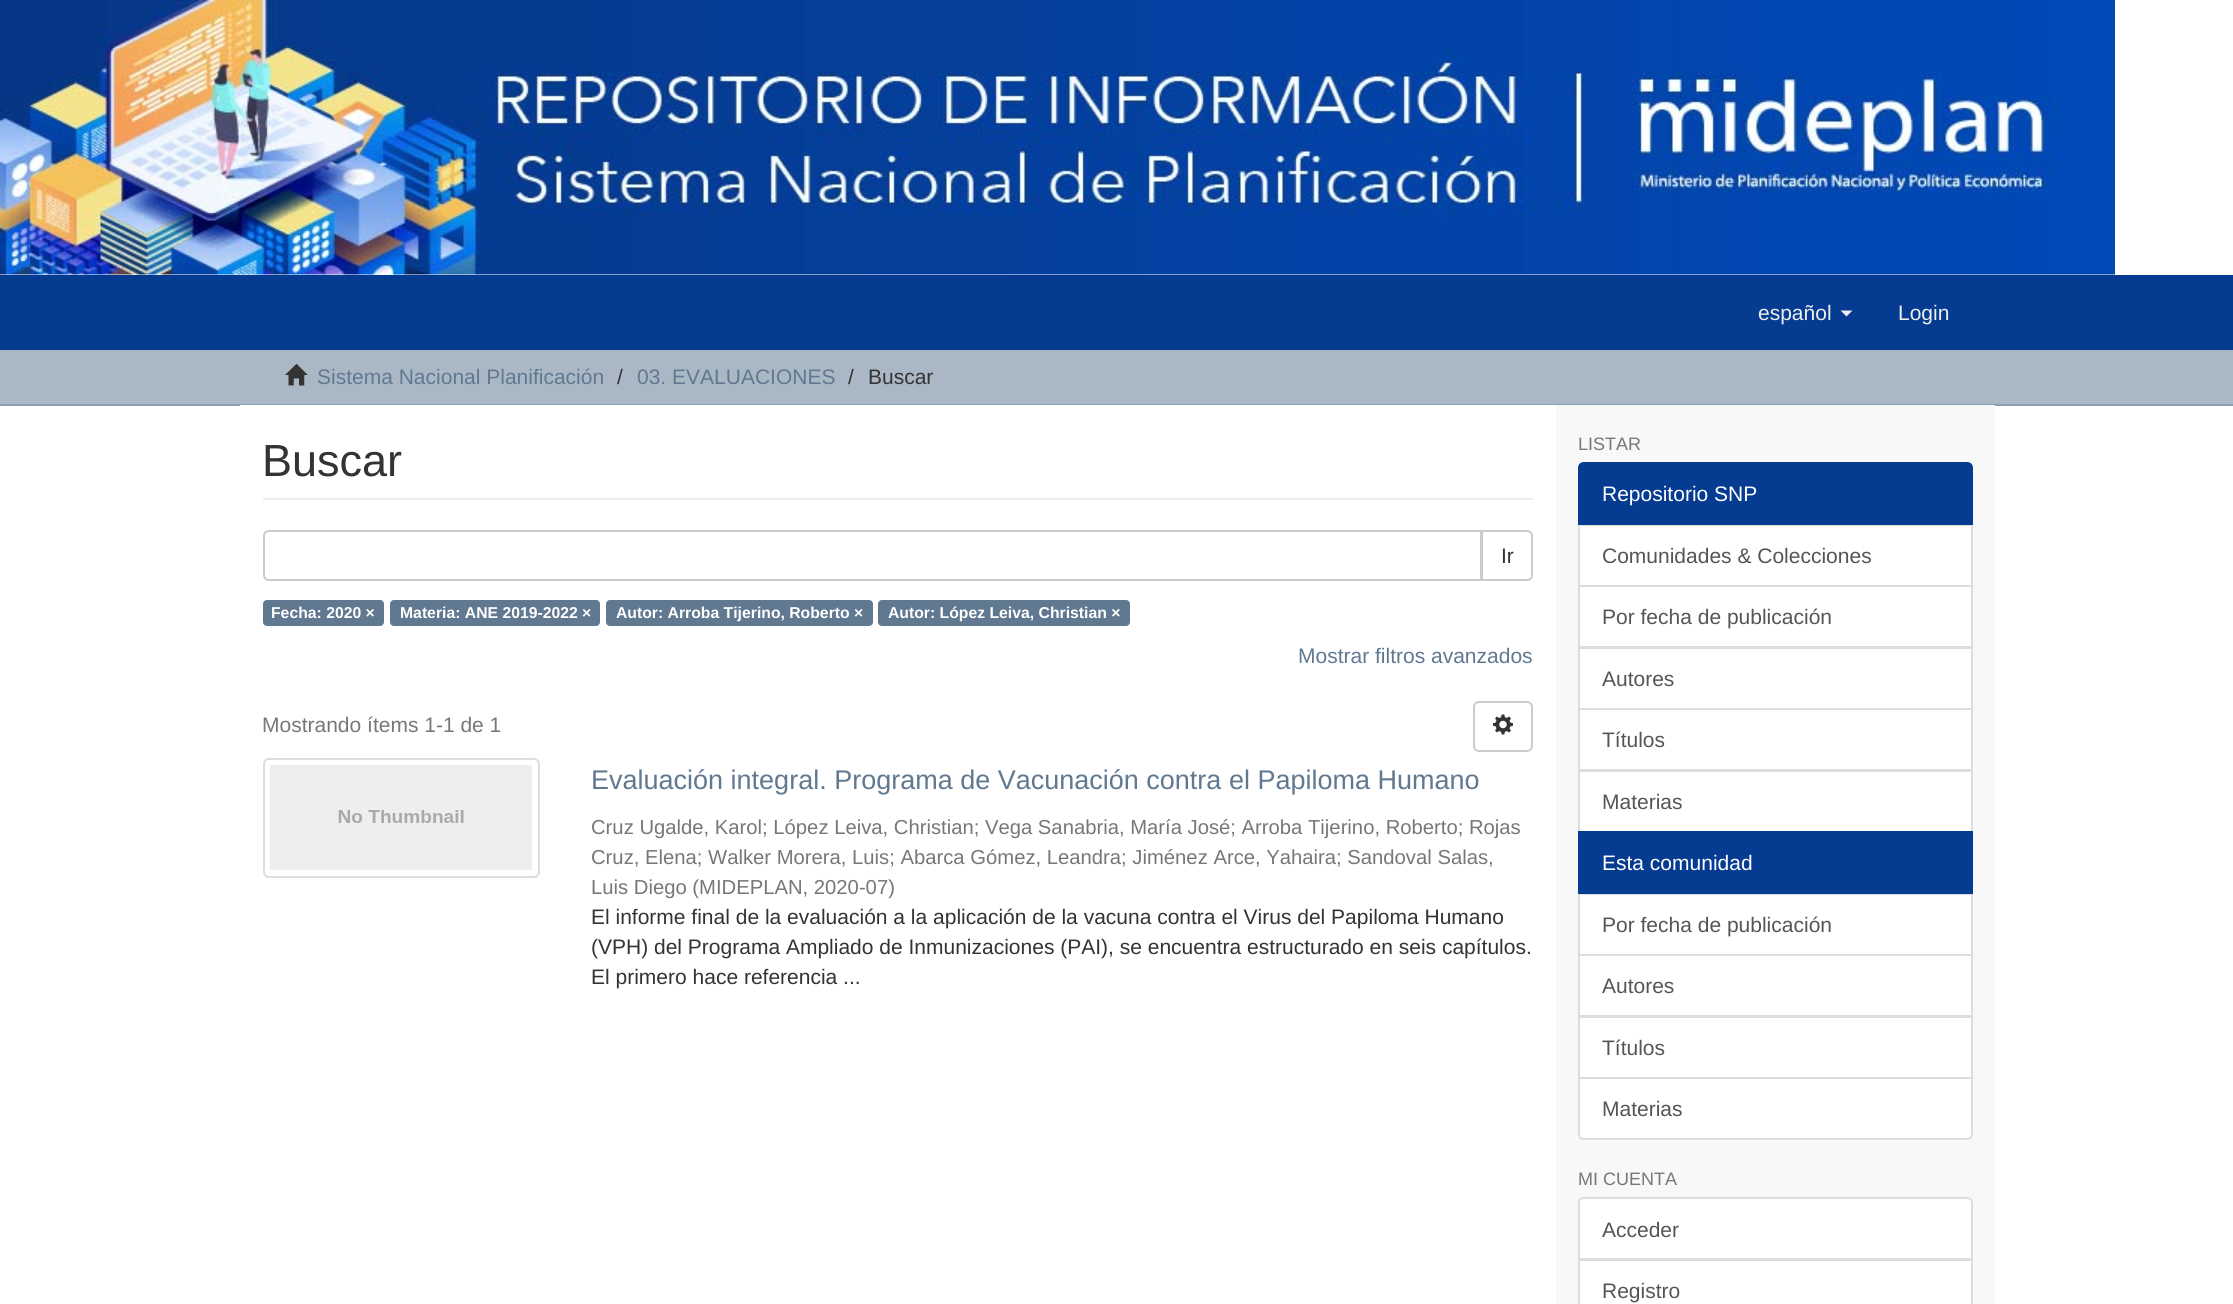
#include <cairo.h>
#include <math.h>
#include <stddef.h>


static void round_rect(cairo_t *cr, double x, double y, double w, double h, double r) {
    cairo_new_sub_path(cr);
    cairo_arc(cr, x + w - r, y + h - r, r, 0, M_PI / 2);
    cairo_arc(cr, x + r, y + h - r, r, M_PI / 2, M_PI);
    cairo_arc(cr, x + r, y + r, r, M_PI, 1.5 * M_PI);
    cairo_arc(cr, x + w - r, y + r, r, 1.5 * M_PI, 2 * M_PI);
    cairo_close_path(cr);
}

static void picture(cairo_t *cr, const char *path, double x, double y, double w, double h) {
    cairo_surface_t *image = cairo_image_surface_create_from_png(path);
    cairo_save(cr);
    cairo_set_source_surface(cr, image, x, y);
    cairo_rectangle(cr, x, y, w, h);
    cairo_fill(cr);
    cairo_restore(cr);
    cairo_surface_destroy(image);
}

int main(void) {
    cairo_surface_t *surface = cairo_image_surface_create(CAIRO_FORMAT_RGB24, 2233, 1304);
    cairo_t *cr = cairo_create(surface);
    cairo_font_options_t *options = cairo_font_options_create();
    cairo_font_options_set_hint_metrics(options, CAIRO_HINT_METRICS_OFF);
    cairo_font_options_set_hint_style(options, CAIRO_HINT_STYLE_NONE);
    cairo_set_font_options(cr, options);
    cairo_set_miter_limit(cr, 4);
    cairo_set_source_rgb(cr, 1, 1, 1);
    cairo_paint(cr);
    picture(cr, "img1.png", 0, 0, 2115, 275);
    cairo_set_source_rgb(cr, 0.02, 0.231, 0.569);
    cairo_rectangle(cr, 0, 275, 2233, 75);
    cairo_fill(cr);
    cairo_select_font_face(cr, "Liberation Sans", CAIRO_FONT_SLANT_NORMAL, CAIRO_FONT_WEIGHT_NORMAL);
    cairo_set_font_size(cr, 21);
    cairo_set_source_rgb(cr, 0.933, 0.933, 0.933);
    cairo_move_to(cr, 1758, 320);
    cairo_show_text(cr, "español");
    cairo_new_path(cr);
    cairo_move_to(cr, 1840.5, 310.5);
    cairo_line_to(cr, 1852.5, 310.5);
    cairo_line_to(cr, 1846.5, 316.5);
    cairo_close_path(cr);
    cairo_fill(cr);
    cairo_move_to(cr, 1898, 320);
    cairo_show_text(cr, "Login");
    cairo_set_source_rgb(cr, 0.667, 0.722, 0.776);
    cairo_rectangle(cr, 0, 350, 2233, 54);
    cairo_fill(cr);
    cairo_set_source_rgb(cr, 0.545, 0.62, 0.698);
    cairo_rectangle(cr, 0, 404, 2233, 2);
    cairo_fill(cr);
    picture(cr, "img2.png", 285, 363, 23, 23);
    cairo_set_source_rgb(cr, 0.376, 0.471, 0.565);
    cairo_move_to(cr, 317, 384);
    cairo_show_text(cr, "Sistema Nacional Planificación");
    cairo_set_source_rgb(cr, 0.2, 0.2, 0.2);
    cairo_move_to(cr, 617, 384);
    cairo_show_text(cr, "/");
    cairo_set_source_rgb(cr, 0.376, 0.471, 0.565);
    cairo_move_to(cr, 637, 384);
    cairo_show_text(cr, "03. EVALUACIONES");
    cairo_set_source_rgb(cr, 0.2, 0.2, 0.2);
    cairo_move_to(cr, 848, 384);
    cairo_show_text(cr, "/");
    cairo_move_to(cr, 868, 384);
    cairo_show_text(cr, "Buscar");
    cairo_set_source_rgb(cr, 0.969, 0.969, 0.969);
    cairo_rectangle(cr, 1556, 405, 439, 899);
    cairo_fill(cr);
    cairo_set_source_rgb(cr, 1, 1, 1);
    cairo_rectangle(cr, 240, 405, 1316, 1);
    cairo_fill(cr);
    cairo_set_source_rgb(cr, 0.933, 0.933, 0.933);
    cairo_rectangle(cr, 263, 498, 1270, 2);
    cairo_fill(cr);
    cairo_set_font_size(cr, 45);
    cairo_set_source_rgb(cr, 0.2, 0.2, 0.2);
    cairo_move_to(cr, 262, 476);
    cairo_show_text(cr, "Buscar");
    cairo_new_path(cr);
    cairo_move_to(cr, 1482, 531);
    cairo_line_to(cr, 1527, 531);
    cairo_curve_to(cr, 1530, 531, 1532, 533, 1532, 536);
    cairo_line_to(cr, 1532, 575);
    cairo_curve_to(cr, 1532, 578, 1530, 580, 1527, 580);
    cairo_line_to(cr, 1482, 580);
    cairo_close_path(cr);
    cairo_set_source_rgb(cr, 0.8, 0.8, 0.8);
    cairo_stroke(cr);
    cairo_set_source_rgb(cr, 1, 1, 1);
    cairo_new_path(cr);
    cairo_move_to(cr, 269, 531);
    cairo_line_to(cr, 1481, 531);
    cairo_line_to(cr, 1481, 580);
    cairo_line_to(cr, 269, 580);
    cairo_curve_to(cr, 266, 580, 264, 578, 264, 575);
    cairo_line_to(cr, 264, 536);
    cairo_curve_to(cr, 264, 533, 266, 531, 269, 531);
    cairo_close_path(cr);
    cairo_fill_preserve(cr);
    cairo_set_source_rgb(cr, 0.8, 0.8, 0.8);
    cairo_stroke(cr);
    cairo_set_font_size(cr, 21);
    cairo_set_source_rgb(cr, 0.2, 0.2, 0.2);
    cairo_move_to(cr, 1501, 563);
    cairo_show_text(cr, "Ir");
    cairo_set_source_rgb(cr, 0.376, 0.471, 0.565);
    round_rect(cr, 263, 600, 121, 26, 4);
    cairo_fill(cr);
    cairo_select_font_face(cr, "Liberation Sans", CAIRO_FONT_SLANT_NORMAL, CAIRO_FONT_WEIGHT_BOLD);
    cairo_set_font_size(cr, 15.75);
    cairo_set_source_rgb(cr, 1, 1, 1);
    cairo_move_to(cr, 271, 618);
    cairo_show_text(cr, "Fecha: 2020 ×");
    cairo_set_source_rgb(cr, 0.376, 0.471, 0.565);
    round_rect(cr, 390, 600, 210, 26, 4);
    cairo_fill(cr);
    cairo_set_source_rgb(cr, 1, 1, 1);
    cairo_move_to(cr, 400, 618);
    cairo_show_text(cr, "Materia: ANE 2019-2022 ×");
    cairo_set_source_rgb(cr, 0.376, 0.471, 0.565);
    round_rect(cr, 606, 600, 267, 26, 4);
    cairo_fill(cr);
    cairo_set_source_rgb(cr, 1, 1, 1);
    cairo_move_to(cr, 616, 618);
    cairo_show_text(cr, "Autor: Arroba Tijerino, Roberto ×");
    cairo_set_source_rgb(cr, 0.376, 0.471, 0.565);
    round_rect(cr, 878, 600, 252, 26, 4);
    cairo_fill(cr);
    cairo_set_source_rgb(cr, 1, 1, 1);
    cairo_move_to(cr, 888, 618);
    cairo_show_text(cr, "Autor: López Leiva, Christian ×");
    cairo_select_font_face(cr, "Liberation Sans", CAIRO_FONT_SLANT_NORMAL, CAIRO_FONT_WEIGHT_NORMAL);
    cairo_set_font_size(cr, 21);
    cairo_set_source_rgb(cr, 0.376, 0.471, 0.565);
    cairo_move_to(cr, 1298, 663);
    cairo_show_text(cr, "Mostrar filtros avanzados");
    cairo_set_source_rgb(cr, 0.467, 0.467, 0.467);
    cairo_move_to(cr, 262, 732);
    cairo_show_text(cr, "Mostrando ítems 1-1 de 1");
    round_rect(cr, 1474, 702, 58, 49, 5);
    cairo_set_source_rgb(cr, 0.8, 0.8, 0.8);
    cairo_stroke(cr);
    picture(cr, "img3.png", 1492, 714, 22, 21);
    round_rect(cr, 264, 759, 275, 118, 5);
    cairo_set_source_rgb(cr, 0.867, 0.867, 0.867);
    cairo_stroke(cr);
    picture(cr, "img4.png", 270, 765, 262, 105);
    cairo_set_font_size(cr, 27);
    cairo_set_source_rgb(cr, 0.376, 0.471, 0.565);
    cairo_move_to(cr, 591, 789);
    cairo_show_text(cr, "Evaluación integral. Programa de Vacunación contra el Papiloma Humano");
    cairo_set_font_size(cr, 20.25);
    cairo_set_source_rgb(cr, 0.467, 0.467, 0.467);
    cairo_move_to(cr, 591, 834);
    cairo_show_text(cr, "Cruz Ugalde, Karol; López Leiva, Christian; Vega Sanabria, María José; Arroba Tijerino, Roberto; Rojas");
    cairo_move_to(cr, 591, 864);
    cairo_show_text(cr, "Cruz, Elena; Walker Morera, Luis; Abarca Gómez, Leandra; Jiménez Arce, Yahaira; Sandoval Salas,");
    cairo_move_to(cr, 591, 894);
    cairo_show_text(cr, "Luis Diego (MIDEPLAN, 2020-07)");
    cairo_set_font_size(cr, 21);
    cairo_set_source_rgb(cr, 0.2, 0.2, 0.2);
    cairo_move_to(cr, 591, 924);
    cairo_show_text(cr, "El informe final de la evaluación a la aplicación de la vacuna contra el Virus del Papiloma Humano");
    cairo_move_to(cr, 591, 954);
    cairo_show_text(cr, "(VPH) del Programa Ampliado de Inmunizaciones (PAI), se encuentra estructurado en seis capítulos.");
    cairo_move_to(cr, 591, 984);
    cairo_show_text(cr, "El primero hace referencia ...");
    cairo_set_font_size(cr, 18);
    cairo_set_source_rgb(cr, 0.467, 0.467, 0.467);
    cairo_move_to(cr, 1578, 450);
    cairo_show_text(cr, "LISTAR");
    cairo_set_source_rgb(cr, 1, 1, 1);
    cairo_rectangle(cr, 1579, 525, 393, 61);
    cairo_fill_preserve(cr);
    cairo_set_source_rgb(cr, 0.867, 0.867, 0.867);
    cairo_stroke(cr);
    cairo_set_source_rgb(cr, 0.02, 0.231, 0.569);
    cairo_new_path(cr);
    cairo_move_to(cr, 1584, 463);
    cairo_line_to(cr, 1967, 463);
    cairo_curve_to(cr, 1970, 463, 1972, 465, 1972, 468);
    cairo_line_to(cr, 1972, 524);
    cairo_line_to(cr, 1579, 524);
    cairo_line_to(cr, 1579, 468);
    cairo_curve_to(cr, 1579, 465, 1581, 463, 1584, 463);
    cairo_close_path(cr);
    cairo_fill_preserve(cr);
    cairo_stroke(cr);
    cairo_set_font_size(cr, 21);
    cairo_set_source_rgb(cr, 1, 1, 1);
    cairo_move_to(cr, 1602, 501);
    cairo_show_text(cr, "Repositorio SNP");
    cairo_set_source_rgb(cr, 0.333, 0.333, 0.333);
    cairo_move_to(cr, 1602, 563);
    cairo_show_text(cr, "Comunidades & Colecciones");
    cairo_set_source_rgb(cr, 1, 1, 1);
    cairo_rectangle(cr, 1579, 586, 393, 61);
    cairo_fill_preserve(cr);
    cairo_set_source_rgb(cr, 0.867, 0.867, 0.867);
    cairo_stroke(cr);
    cairo_set_source_rgb(cr, 0.333, 0.333, 0.333);
    cairo_move_to(cr, 1602, 624);
    cairo_show_text(cr, "Por fecha de publicación");
    cairo_set_source_rgb(cr, 1, 1, 1);
    cairo_rectangle(cr, 1579, 648, 393, 61);
    cairo_fill_preserve(cr);
    cairo_set_source_rgb(cr, 0.867, 0.867, 0.867);
    cairo_stroke(cr);
    cairo_set_source_rgb(cr, 0.333, 0.333, 0.333);
    cairo_move_to(cr, 1602, 686);
    cairo_show_text(cr, "Autores");
    cairo_set_source_rgb(cr, 1, 1, 1);
    cairo_rectangle(cr, 1579, 709, 393, 61);
    cairo_fill_preserve(cr);
    cairo_set_source_rgb(cr, 0.867, 0.867, 0.867);
    cairo_stroke(cr);
    cairo_set_source_rgb(cr, 0.333, 0.333, 0.333);
    cairo_move_to(cr, 1602, 747);
    cairo_show_text(cr, "Títulos");
    cairo_set_source_rgb(cr, 1, 1, 1);
    cairo_rectangle(cr, 1579, 771, 393, 61);
    cairo_fill_preserve(cr);
    cairo_set_source_rgb(cr, 0.867, 0.867, 0.867);
    cairo_stroke(cr);
    cairo_set_source_rgb(cr, 0.333, 0.333, 0.333);
    cairo_move_to(cr, 1602, 809);
    cairo_show_text(cr, "Materias");
    cairo_set_source_rgb(cr, 1, 1, 1);
    cairo_rectangle(cr, 1579, 894, 393, 61);
    cairo_fill_preserve(cr);
    cairo_set_source_rgb(cr, 0.867, 0.867, 0.867);
    cairo_stroke(cr);
    cairo_set_source_rgb(cr, 0.02, 0.231, 0.569);
    cairo_rectangle(cr, 1578, 831, 395, 63);
    cairo_fill(cr);
    cairo_set_source_rgb(cr, 1, 1, 1);
    cairo_move_to(cr, 1602, 870);
    cairo_show_text(cr, "Esta comunidad");
    cairo_set_source_rgb(cr, 0.333, 0.333, 0.333);
    cairo_move_to(cr, 1602, 932);
    cairo_show_text(cr, "Por fecha de publicación");
    cairo_set_source_rgb(cr, 1, 1, 1);
    cairo_rectangle(cr, 1579, 955, 393, 61);
    cairo_fill_preserve(cr);
    cairo_set_source_rgb(cr, 0.867, 0.867, 0.867);
    cairo_stroke(cr);
    cairo_set_source_rgb(cr, 0.333, 0.333, 0.333);
    cairo_move_to(cr, 1602, 993);
    cairo_show_text(cr, "Autores");
    cairo_set_source_rgb(cr, 1, 1, 1);
    cairo_rectangle(cr, 1579, 1017, 393, 61);
    cairo_fill_preserve(cr);
    cairo_set_source_rgb(cr, 0.867, 0.867, 0.867);
    cairo_stroke(cr);
    cairo_set_source_rgb(cr, 0.333, 0.333, 0.333);
    cairo_move_to(cr, 1602, 1055);
    cairo_show_text(cr, "Títulos");
    cairo_set_source_rgb(cr, 1, 1, 1);
    cairo_new_path(cr);
    cairo_move_to(cr, 1579, 1078);
    cairo_line_to(cr, 1972, 1078);
    cairo_line_to(cr, 1972, 1134);
    cairo_curve_to(cr, 1972, 1137, 1970, 1139, 1967, 1139);
    cairo_line_to(cr, 1584, 1139);
    cairo_curve_to(cr, 1581, 1139, 1579, 1137, 1579, 1134);
    cairo_close_path(cr);
    cairo_fill_preserve(cr);
    cairo_set_source_rgb(cr, 0.867, 0.867, 0.867);
    cairo_stroke(cr);
    cairo_set_source_rgb(cr, 0.333, 0.333, 0.333);
    cairo_move_to(cr, 1602, 1116);
    cairo_show_text(cr, "Materias");
    cairo_set_font_size(cr, 18);
    cairo_set_source_rgb(cr, 0.467, 0.467, 0.467);
    cairo_move_to(cr, 1578, 1185);
    cairo_show_text(cr, "MI CUENTA");
    cairo_set_source_rgb(cr, 1, 1, 1);
    cairo_new_path(cr);
    cairo_move_to(cr, 1584, 1198);
    cairo_line_to(cr, 1967, 1198);
    cairo_curve_to(cr, 1970, 1198, 1972, 1200, 1972, 1203);
    cairo_line_to(cr, 1972, 1259);
    cairo_line_to(cr, 1579, 1259);
    cairo_line_to(cr, 1579, 1203);
    cairo_curve_to(cr, 1579, 1200, 1581, 1198, 1584, 1198);
    cairo_close_path(cr);
    cairo_fill_preserve(cr);
    cairo_set_source_rgb(cr, 0.867, 0.867, 0.867);
    cairo_stroke(cr);
    cairo_set_font_size(cr, 21);
    cairo_set_source_rgb(cr, 0.333, 0.333, 0.333);
    cairo_move_to(cr, 1602, 1237);
    cairo_show_text(cr, "Acceder");
    cairo_set_source_rgb(cr, 1, 1, 1);
    cairo_rectangle(cr, 1579, 1260, 393, 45);
    cairo_fill_preserve(cr);
    cairo_set_source_rgb(cr, 0.867, 0.867, 0.867);
    cairo_stroke(cr);
    cairo_set_source_rgb(cr, 0.333, 0.333, 0.333);
    cairo_move_to(cr, 1602, 1298);
    cairo_show_text(cr, "Registro");
    cairo_surface_write_to_png(surface, "page.png");
    cairo_font_options_destroy(options);
    cairo_destroy(cr);
    cairo_surface_destroy(surface);
    return 0;
}
